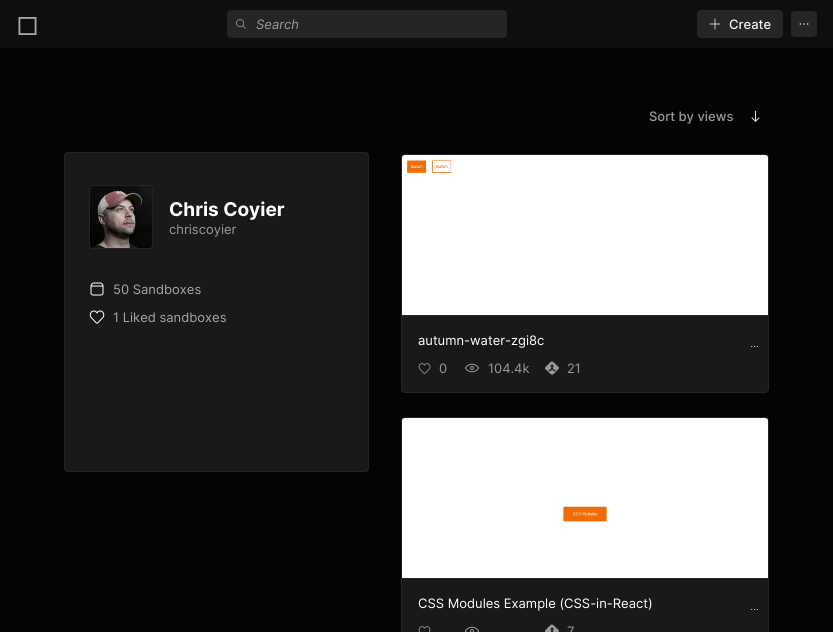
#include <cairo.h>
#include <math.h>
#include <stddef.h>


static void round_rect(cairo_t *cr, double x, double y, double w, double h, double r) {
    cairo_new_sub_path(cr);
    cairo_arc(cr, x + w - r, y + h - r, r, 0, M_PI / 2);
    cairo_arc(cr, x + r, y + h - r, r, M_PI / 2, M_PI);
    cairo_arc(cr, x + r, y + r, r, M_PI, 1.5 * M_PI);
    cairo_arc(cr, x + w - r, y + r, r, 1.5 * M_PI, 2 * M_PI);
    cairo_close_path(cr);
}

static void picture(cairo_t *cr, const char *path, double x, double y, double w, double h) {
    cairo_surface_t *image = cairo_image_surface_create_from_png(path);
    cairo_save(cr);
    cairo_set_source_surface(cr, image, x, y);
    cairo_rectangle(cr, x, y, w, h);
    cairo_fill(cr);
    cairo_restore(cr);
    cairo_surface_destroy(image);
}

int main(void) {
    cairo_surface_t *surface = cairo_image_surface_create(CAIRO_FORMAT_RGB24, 833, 632);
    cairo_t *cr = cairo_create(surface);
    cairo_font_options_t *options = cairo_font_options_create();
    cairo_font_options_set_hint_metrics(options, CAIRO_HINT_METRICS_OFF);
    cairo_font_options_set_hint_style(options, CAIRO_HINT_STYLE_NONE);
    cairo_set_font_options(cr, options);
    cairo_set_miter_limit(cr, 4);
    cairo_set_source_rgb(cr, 0.016, 0.016, 0.016);
    cairo_paint(cr);
    cairo_set_source_rgb(cr, 0.055, 0.055, 0.055);
    cairo_rectangle(cr, 0, 0, 833, 48);
    cairo_fill(cr);
    picture(cr, "img1.png", 18, 17, 19, 18);
    cairo_set_source_rgb(cr, 0.145, 0.145, 0.145);
    round_rect(cr, 227.5, 10.5, 279, 27, 3.5);
    cairo_fill_preserve(cr);
    cairo_set_source_rgb(cr, 0.141, 0.141, 0.141);
    cairo_set_line_width(cr, 1);
    cairo_stroke(cr);
    picture(cr, "img2.png", 236, 19, 10, 10);
    cairo_select_font_face(cr, "Inter", CAIRO_FONT_SLANT_ITALIC, CAIRO_FONT_WEIGHT_NORMAL);
    cairo_set_font_size(cr, 13);
    cairo_set_source_rgb(cr, 0.6, 0.6, 0.6);
    cairo_move_to(cr, 256, 29);
    cairo_show_text(cr, "Search");
    cairo_set_source_rgb(cr, 0.149, 0.149, 0.149);
    round_rect(cr, 697, 10, 86, 28, 4);
    cairo_fill(cr);
    picture(cr, "img3.png", 709, 18, 12, 12);
    cairo_select_font_face(cr, "Inter Medium", CAIRO_FONT_SLANT_NORMAL, CAIRO_FONT_WEIGHT_NORMAL);
    cairo_set_source_rgb(cr, 0.949, 0.949, 0.949);
    cairo_move_to(cr, 729, 29);
    cairo_show_text(cr, "Create");
    cairo_set_source_rgb(cr, 0.149, 0.149, 0.149);
    round_rect(cr, 791, 11, 26, 26, 4);
    cairo_fill(cr);
    picture(cr, "img4.png", 799, 23, 10, 2);
    cairo_set_source_rgb(cr, 0.098, 0.098, 0.098);
    round_rect(cr, 64.5, 152.5, 304, 319, 3.5);
    cairo_fill_preserve(cr);
    cairo_set_source_rgb(cr, 0.141, 0.141, 0.141);
    cairo_stroke(cr);
    round_rect(cr, 89.5, 185.5, 63, 63, 3.5);
    cairo_stroke(cr);
    picture(cr, "img5.png", 90, 186, 62, 62);
    cairo_select_font_face(cr, "Inter", CAIRO_FONT_SLANT_NORMAL, CAIRO_FONT_WEIGHT_BOLD);
    cairo_set_font_size(cr, 19);
    cairo_set_source_rgb(cr, 1, 1, 1);
    cairo_move_to(cr, 169, 216);
    cairo_show_text(cr, "Chris Coyier");
    cairo_select_font_face(cr, "Inter", CAIRO_FONT_SLANT_NORMAL, CAIRO_FONT_WEIGHT_NORMAL);
    cairo_set_font_size(cr, 13);
    cairo_set_source_rgb(cr, 0.6, 0.6, 0.6);
    cairo_move_to(cr, 169, 234);
    cairo_show_text(cr, "chriscoyier");
    picture(cr, "img6.png", 90, 282, 14, 14);
    cairo_set_source_rgb(cr, 0.651, 0.651, 0.651);
    cairo_move_to(cr, 113, 294);
    cairo_show_text(cr, "50 Sandboxes");
    picture(cr, "img7.png", 89, 310, 16, 14);
    cairo_move_to(cr, 113, 322);
    cairo_show_text(cr, "1 Liked sandboxes");
    cairo_select_font_face(cr, "Inter Medium", CAIRO_FONT_SLANT_NORMAL, CAIRO_FONT_WEIGHT_NORMAL);
    cairo_set_source_rgb(cr, 0.6, 0.6, 0.6);
    cairo_move_to(cr, 649, 121);
    cairo_show_text(cr, "Sort by views");
    picture(cr, "img8.png", 751, 111, 9, 11);
    cairo_set_source_rgb(cr, 0.098, 0.098, 0.098);
    round_rect(cr, 401.5, 154.5, 367, 238, 3.5);
    cairo_fill_preserve(cr);
    cairo_set_source_rgb(cr, 0.141, 0.141, 0.141);
    cairo_stroke(cr);
    picture(cr, "img9.png", 402, 155, 366, 160);
    cairo_rectangle(cr, 402, 315, 366, 1);
    cairo_fill(cr);
    cairo_select_font_face(cr, "Inter", CAIRO_FONT_SLANT_NORMAL, CAIRO_FONT_WEIGHT_NORMAL);
    cairo_set_source_rgb(cr, 1, 1, 1);
    cairo_move_to(cr, 418, 345);
    cairo_show_text(cr, "autumn-water-zgi8c");
    picture(cr, "img10.png", 418, 363, 13, 11);
    cairo_set_source_rgb(cr, 0.6, 0.6, 0.6);
    cairo_move_to(cr, 439, 373);
    cairo_show_text(cr, "0");
    picture(cr, "img11.png", 464, 363, 16, 10);
    cairo_move_to(cr, 488, 373);
    cairo_show_text(cr, "104.4k");
    picture(cr, "img12.png", 545, 361, 14, 14);
    cairo_move_to(cr, 567, 373);
    cairo_show_text(cr, "21");
    picture(cr, "img13.png", 751, 346, 7, 1);
    cairo_set_source_rgb(cr, 0.098, 0.098, 0.098);
    round_rect(cr, 401.5, 417.5, 367, 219, 3.5);
    cairo_fill_preserve(cr);
    cairo_set_source_rgb(cr, 0.141, 0.141, 0.141);
    cairo_stroke(cr);
    picture(cr, "img14.png", 402, 418, 366, 160);
    cairo_rectangle(cr, 402, 578, 366, 1);
    cairo_fill(cr);
    cairo_set_source_rgb(cr, 1, 1, 1);
    cairo_move_to(cr, 418, 608);
    cairo_show_text(cr, "CSS Modules Example (CSS-in-React)");
    picture(cr, "img15.png", 418, 626, 13, 6);
    picture(cr, "img16.png", 464, 626, 16, 6);
    picture(cr, "img17.png", 545, 624, 14, 8);
    cairo_set_source_rgb(cr, 0.6, 0.6, 0.6);
    cairo_move_to(cr, 567, 636);
    cairo_show_text(cr, "7");
    picture(cr, "img13.png", 751, 609, 7, 1);
    cairo_surface_write_to_png(surface, "page.png");
    cairo_font_options_destroy(options);
    cairo_destroy(cr);
    cairo_surface_destroy(surface);
    return 0;
}
